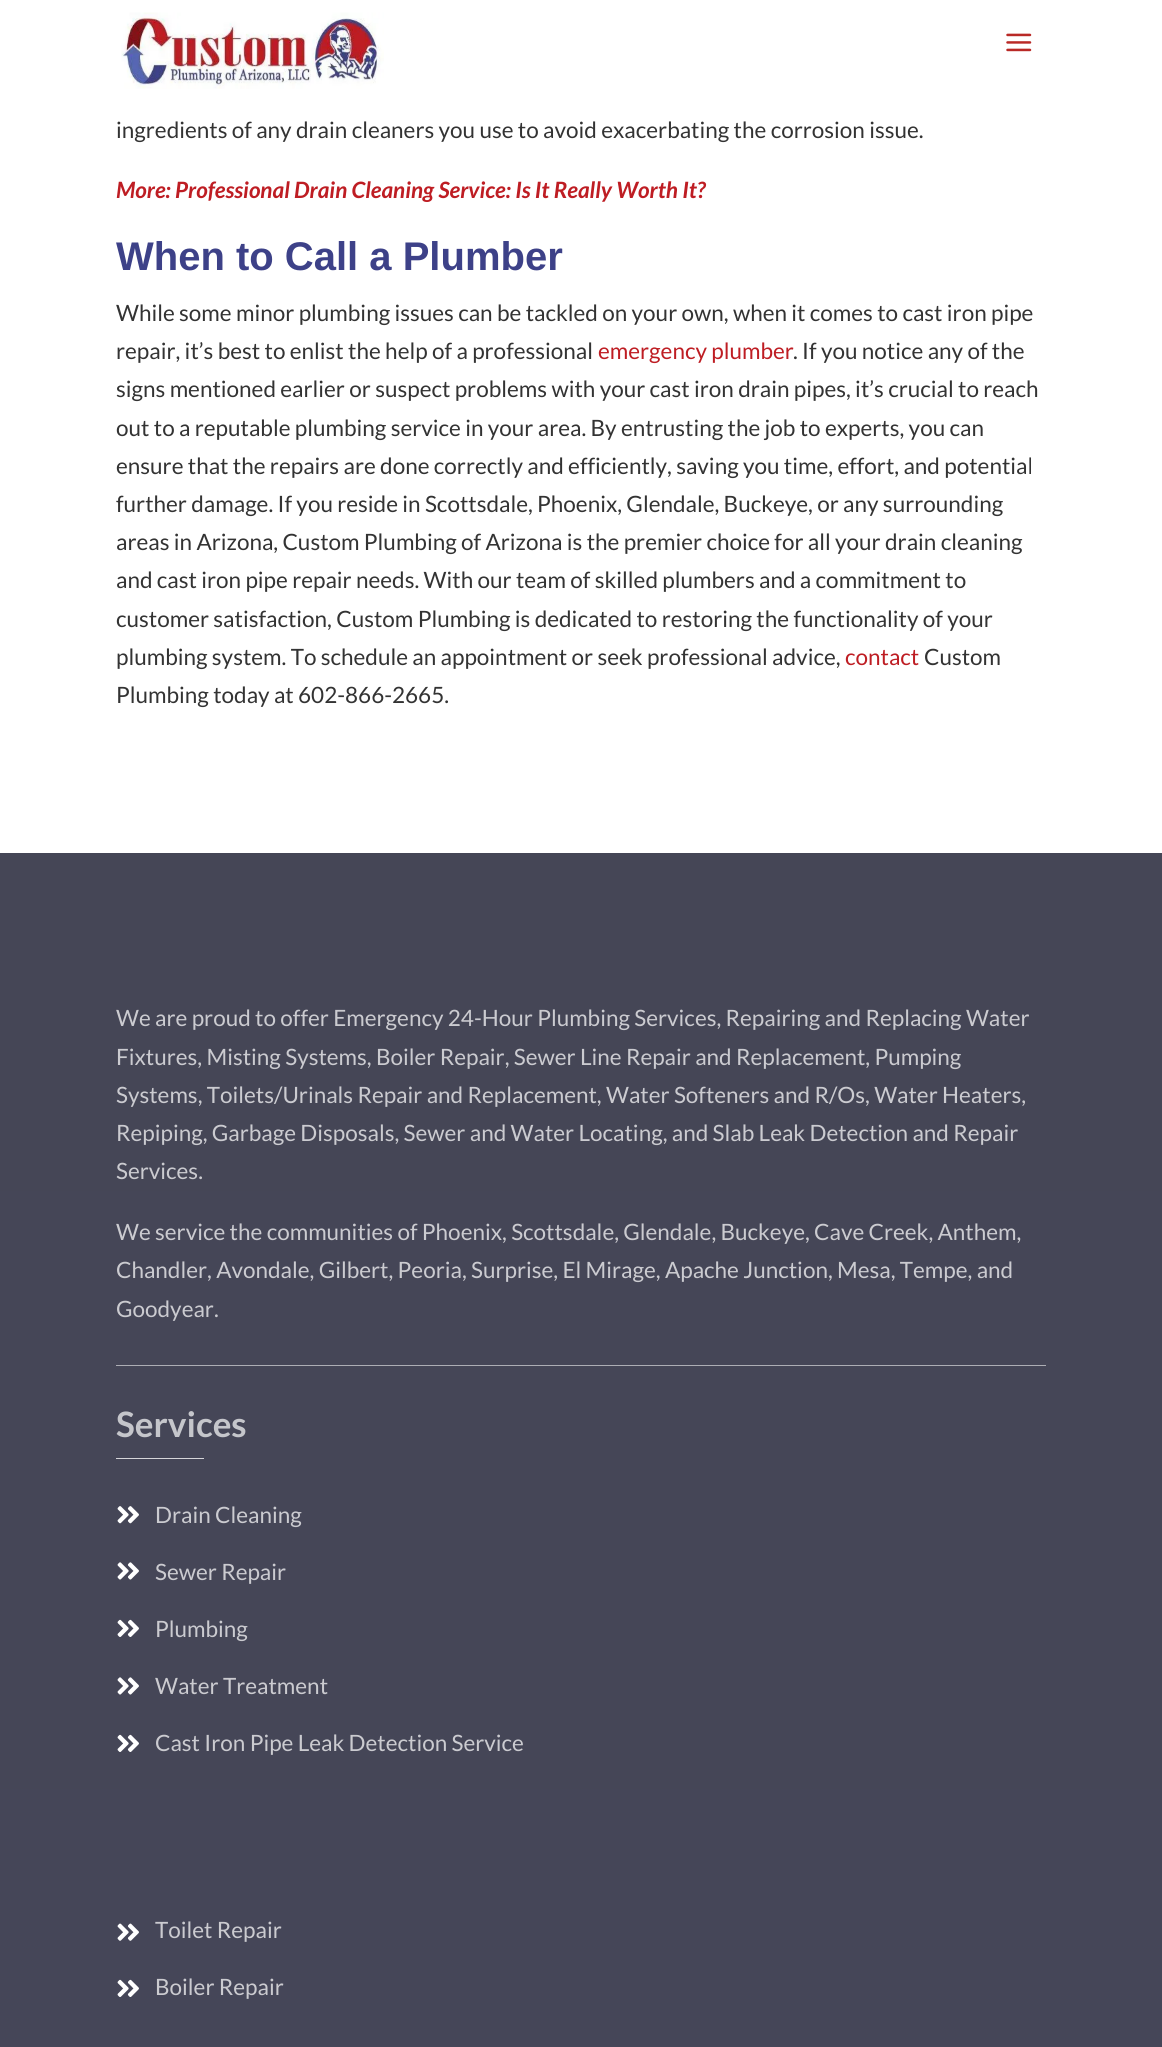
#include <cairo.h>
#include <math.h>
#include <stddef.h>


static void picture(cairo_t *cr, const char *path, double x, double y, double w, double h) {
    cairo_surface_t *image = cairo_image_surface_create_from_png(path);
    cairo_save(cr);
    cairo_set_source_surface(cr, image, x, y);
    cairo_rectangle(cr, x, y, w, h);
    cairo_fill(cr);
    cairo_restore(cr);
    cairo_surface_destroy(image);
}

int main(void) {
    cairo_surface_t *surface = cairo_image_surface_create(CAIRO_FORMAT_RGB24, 1162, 2047);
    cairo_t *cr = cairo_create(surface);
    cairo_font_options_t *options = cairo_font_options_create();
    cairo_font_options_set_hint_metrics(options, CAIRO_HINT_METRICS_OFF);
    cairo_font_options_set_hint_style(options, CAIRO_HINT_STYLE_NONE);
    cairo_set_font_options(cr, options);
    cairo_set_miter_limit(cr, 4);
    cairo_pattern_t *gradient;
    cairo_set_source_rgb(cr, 1, 1, 1);
    cairo_paint(cr);
    picture(cr, "img1.png", 121, 12, 263, 77);
    picture(cr, "img2.png", 1006, 33, 26, 19);
    cairo_select_font_face(cr, "Lato", CAIRO_FONT_SLANT_NORMAL, CAIRO_FONT_WEIGHT_NORMAL);
    cairo_set_font_size(cr, 22.5);
    cairo_set_source_rgb(cr, 0.2, 0.2, 0.2);
    cairo_move_to(cr, 116, 138);
    cairo_show_text(cr, "ingredients of any drain cleaners you use to avoid exacerbating the corrosion issue.");
    cairo_select_font_face(cr, "Lato", CAIRO_FONT_SLANT_ITALIC, CAIRO_FONT_WEIGHT_BOLD);
    cairo_set_source_rgb(cr, 0.745, 0.114, 0.137);
    cairo_move_to(cr, 116, 198);
    cairo_show_text(cr, "More: Professional Drain Cleaning Service: Is It Really Worth It?");
    cairo_select_font_face(cr, "Liberation Sans", CAIRO_FONT_SLANT_NORMAL, CAIRO_FONT_WEIGHT_BOLD);
    cairo_set_font_size(cr, 40);
    cairo_set_source_rgb(cr, 0.239, 0.255, 0.533);
    cairo_move_to(cr, 116, 270);
    cairo_show_text(cr, "When to Call a Plumber");
    cairo_select_font_face(cr, "Lato", CAIRO_FONT_SLANT_NORMAL, CAIRO_FONT_WEIGHT_NORMAL);
    cairo_set_font_size(cr, 22.5);
    cairo_set_source_rgb(cr, 0.2, 0.2, 0.2);
    cairo_move_to(cr, 116, 321);
    cairo_show_text(cr, "While some minor plumbing issues can be tackled on your own, when it comes to cast iron pipe");
    cairo_move_to(cr, 116, 359);
    cairo_show_text(cr, "repair, it’s best to enlist the help of a professional");
    cairo_set_source_rgb(cr, 0.745, 0.114, 0.137);
    cairo_move_to(cr, 598, 359);
    cairo_show_text(cr, "emergency plumber");
    cairo_set_source_rgb(cr, 0.2, 0.2, 0.2);
    cairo_move_to(cr, 793, 359);
    cairo_show_text(cr, ". If you notice any of the");
    cairo_move_to(cr, 116, 397);
    cairo_show_text(cr, "signs mentioned earlier or suspect problems with your cast iron drain pipes, it’s crucial to reach");
    cairo_move_to(cr, 116, 436);
    cairo_show_text(cr, "out to a reputable plumbing service in your area. By entrusting the job to experts, you can");
    cairo_move_to(cr, 116, 474);
    cairo_show_text(cr, "ensure that the repairs are done correctly and efficiently, saving you time, effort, and potential");
    cairo_move_to(cr, 116, 512);
    cairo_show_text(cr, "further damage. If you reside in Scottsdale, Phoenix, Glendale, Buckeye, or any surrounding");
    cairo_move_to(cr, 116, 550);
    cairo_show_text(cr, "areas in Arizona, Custom Plumbing of Arizona is the premier choice for all your drain cleaning");
    cairo_move_to(cr, 116, 588);
    cairo_show_text(cr, "and cast iron pipe repair needs. With our team of skilled plumbers and a commitment to");
    cairo_move_to(cr, 116, 627);
    cairo_show_text(cr, "customer satisfaction, Custom Plumbing is dedicated to restoring the functionality of your");
    cairo_move_to(cr, 116, 665);
    cairo_show_text(cr, "plumbing system. To schedule an appointment or seek professional advice,");
    cairo_set_source_rgb(cr, 0.745, 0.114, 0.137);
    cairo_move_to(cr, 845, 665);
    cairo_show_text(cr, "contact");
    cairo_set_source_rgb(cr, 0.2, 0.2, 0.2);
    cairo_move_to(cr, 924, 665);
    cairo_show_text(cr, "Custom");
    cairo_move_to(cr, 116, 703);
    cairo_show_text(cr, "Plumbing today at 602-866-2665.");
    gradient = cairo_pattern_create_linear(581, 853, 581, 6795);
    cairo_pattern_add_color_stop_rgba(gradient, 0, 0.271, 0.275, 0.337, 1);
    cairo_pattern_add_color_stop_rgba(gradient, 1, 0.263, 0.271, 0.376, 1);
    cairo_set_source(cr, gradient);
    cairo_pattern_destroy(gradient);
    cairo_rectangle(cr, 0, 853, 1162, 1194);
    cairo_fill(cr);
    cairo_set_source_rgb(cr, 0.678, 0.682, 0.71);
    cairo_rectangle(cr, 116, 1365, 930, 1);
    cairo_fill(cr);
    cairo_set_source_rgb(cr, 0.796, 0.796, 0.816);
    cairo_move_to(cr, 116, 1026);
    cairo_show_text(cr, "We are proud to offer Emergency 24-Hour Plumbing Services, Repairing and Replacing Water");
    cairo_move_to(cr, 116, 1065);
    cairo_show_text(cr, "Fixtures, Misting Systems, Boiler Repair, Sewer Line Repair and Replacement, Pumping");
    cairo_move_to(cr, 116, 1103);
    cairo_show_text(cr, "Systems, Toilets/Urinals Repair and Replacement, Water Softeners and R/Os, Water Heaters,");
    cairo_move_to(cr, 116, 1141);
    cairo_show_text(cr, "Repiping, Garbage Disposals, Sewer and Water Locating, and Slab Leak Detection and Repair");
    cairo_move_to(cr, 116, 1179);
    cairo_show_text(cr, "Services.");
    cairo_move_to(cr, 116, 1240);
    cairo_show_text(cr, "We service the communities of Phoenix, Scottsdale, Glendale, Buckeye, Cave Creek, Anthem,");
    cairo_move_to(cr, 116, 1278);
    cairo_show_text(cr, "Chandler, Avondale, Gilbert, Peoria, Surprise, El Mirage, Apache Junction, Mesa, Tempe, and");
    cairo_move_to(cr, 116, 1317);
    cairo_show_text(cr, "Goodyear.");
    cairo_select_font_face(cr, "Lato", CAIRO_FONT_SLANT_NORMAL, CAIRO_FONT_WEIGHT_BOLD);
    cairo_set_font_size(cr, 35);
    cairo_set_source_rgb(cr, 0.773, 0.776, 0.796);
    cairo_move_to(cr, 116, 1437);
    cairo_show_text(cr, "Services");
    cairo_set_source_rgb(cr, 0.835, 0.835, 0.851);
    cairo_rectangle(cr, 116, 1458, 88, 1);
    cairo_fill(cr);
    picture(cr, "img3.png", 117, 1506, 22, 18);
    cairo_select_font_face(cr, "Lato", CAIRO_FONT_SLANT_NORMAL, CAIRO_FONT_WEIGHT_NORMAL);
    cairo_set_font_size(cr, 22.5);
    cairo_set_source_rgb(cr, 0.796, 0.796, 0.816);
    cairo_move_to(cr, 155, 1523);
    cairo_show_text(cr, "Drain Cleaning");
    picture(cr, "img4.png", 117, 1562, 22, 18);
    cairo_move_to(cr, 155, 1580);
    cairo_show_text(cr, "Sewer Repair");
    picture(cr, "img5.png", 117, 1619, 22, 18);
    cairo_move_to(cr, 155, 1637);
    cairo_show_text(cr, "Plumbing");
    picture(cr, "img4.png", 117, 1677, 22, 18);
    cairo_move_to(cr, 155, 1694);
    cairo_show_text(cr, "Water Treatment");
    picture(cr, "img6.png", 117, 1734, 22, 18);
    cairo_move_to(cr, 155, 1751);
    cairo_show_text(cr, "Cast Iron Pipe Leak Detection Service");
    picture(cr, "img7.png", 117, 1923, 22, 18);
    cairo_move_to(cr, 155, 1938);
    cairo_show_text(cr, "Toilet Repair");
    picture(cr, "img8.png", 117, 1979, 22, 18);
    cairo_move_to(cr, 155, 1995);
    cairo_show_text(cr, "Boiler Repair");
    cairo_surface_write_to_png(surface, "page.png");
    cairo_font_options_destroy(options);
    cairo_destroy(cr);
    cairo_surface_destroy(surface);
    return 0;
}
